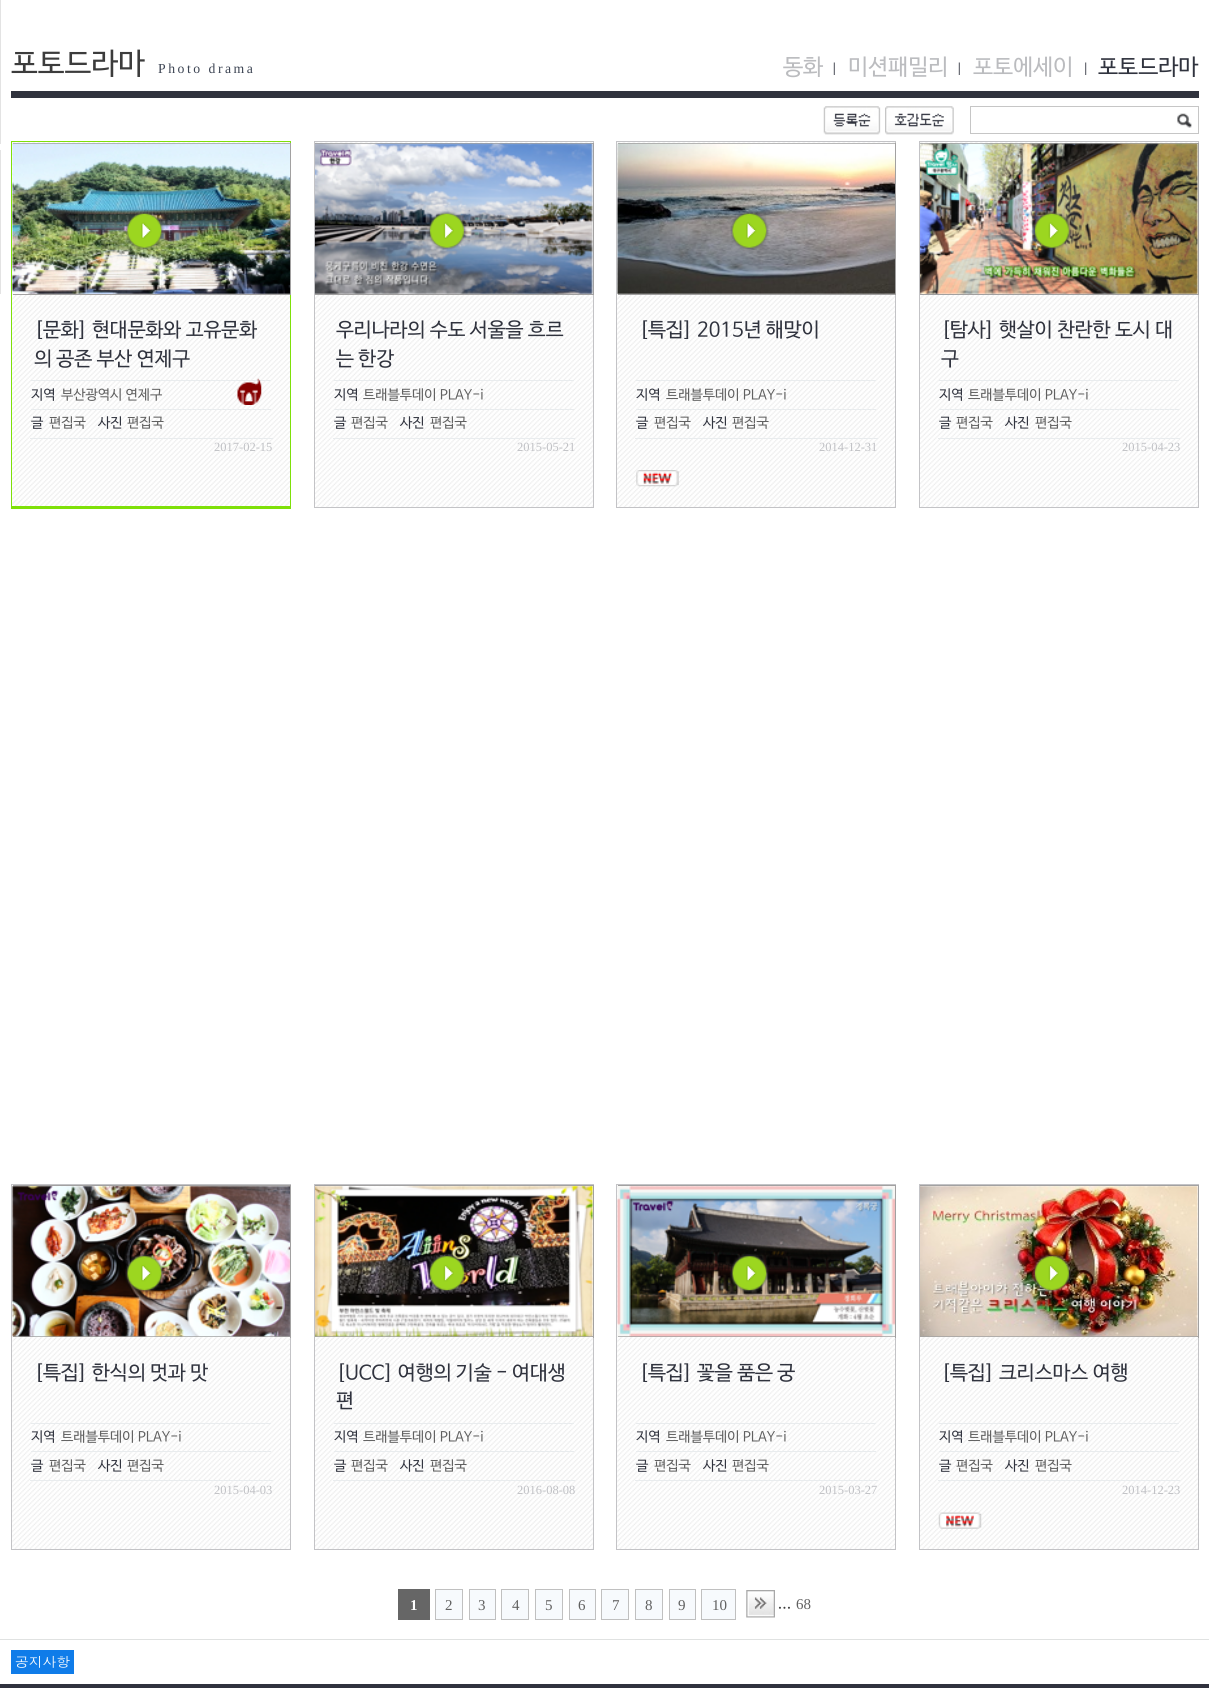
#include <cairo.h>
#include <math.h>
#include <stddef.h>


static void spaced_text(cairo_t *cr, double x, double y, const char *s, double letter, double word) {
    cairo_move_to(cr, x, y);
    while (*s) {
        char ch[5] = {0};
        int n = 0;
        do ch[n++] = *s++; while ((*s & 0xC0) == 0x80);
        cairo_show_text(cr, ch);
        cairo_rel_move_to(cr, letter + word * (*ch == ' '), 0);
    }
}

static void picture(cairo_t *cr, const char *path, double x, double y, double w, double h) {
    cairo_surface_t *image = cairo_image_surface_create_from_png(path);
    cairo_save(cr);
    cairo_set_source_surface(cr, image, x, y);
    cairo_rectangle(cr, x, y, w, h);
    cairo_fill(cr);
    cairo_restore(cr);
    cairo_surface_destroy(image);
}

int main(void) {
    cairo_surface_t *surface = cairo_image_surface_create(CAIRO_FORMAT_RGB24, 1209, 1691);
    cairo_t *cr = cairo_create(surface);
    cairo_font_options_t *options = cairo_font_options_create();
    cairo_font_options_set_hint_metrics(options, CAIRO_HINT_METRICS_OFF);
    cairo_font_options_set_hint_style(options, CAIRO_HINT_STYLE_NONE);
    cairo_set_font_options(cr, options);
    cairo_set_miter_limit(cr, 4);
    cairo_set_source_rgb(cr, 1, 1, 1);
    cairo_paint(cr);
    cairo_rectangle(cr, -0.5, 0.5, 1, 143);
    cairo_set_source_rgb(cr, 0.89, 0.89, 0.89);
    cairo_set_line_width(cr, 1);
    cairo_stroke(cr);
    cairo_rectangle(cr, -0.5, 150.5, 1, 143);
    cairo_stroke(cr);
    cairo_set_source_rgb(cr, 0.188, 0.2, 0.243);
    cairo_rectangle(cr, 11, 91, 1188, 7);
    cairo_fill(cr);
    cairo_select_font_face(cr, "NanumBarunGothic", CAIRO_FONT_SLANT_NORMAL, CAIRO_FONT_WEIGHT_NORMAL);
    cairo_set_font_size(cr, 30);
    cairo_set_source_rgb(cr, 0.235, 0.235, 0.235);
    cairo_move_to(cr, 11, 73);
    cairo_show_text(cr, "포토드라마");
    cairo_select_font_face(cr, "Liberation Serif", CAIRO_FONT_SLANT_NORMAL, CAIRO_FONT_WEIGHT_NORMAL);
    cairo_set_font_size(cr, 13.75);
    cairo_set_source_rgb(cr, 0.231, 0.263, 0.322);
    spaced_text(cr, 158, 73, "Photo drama", 2.5, 0);
    picture(cr, "img1.png", 833, 62, 2, 13);
    cairo_select_font_face(cr, "NanumBarunGothic", CAIRO_FONT_SLANT_NORMAL, CAIRO_FONT_WEIGHT_NORMAL);
    cairo_set_font_size(cr, 22.5);
    cairo_set_source_rgb(cr, 0.733, 0.737, 0.749);
    cairo_move_to(cr, 783, 74);
    cairo_show_text(cr, "동화");
    picture(cr, "img1.png", 958, 62, 2, 13);
    cairo_move_to(cr, 848, 74);
    cairo_show_text(cr, "미션패밀리");
    picture(cr, "img2.png", 1085, 62, 2, 13);
    cairo_move_to(cr, 973, 74);
    cairo_show_text(cr, "포토에세이");
    cairo_set_source_rgb(cr, 0.188, 0.2, 0.243);
    cairo_move_to(cr, 1098, 74);
    cairo_show_text(cr, "포토드라마");
    picture(cr, "img3.png", 823, 106, 58, 29);
    picture(cr, "img4.png", 885, 106, 69, 29);
    cairo_rectangle(cr, 970.5, 106.5, 228, 27);
    cairo_set_source_rgb(cr, 0.776, 0.776, 0.776);
    cairo_stroke(cr);
    picture(cr, "img5.png", 1177, 113, 15, 15);
    picture(cr, "img6.png", 12, 142, 278, 364);
    cairo_set_source_rgb(cr, 0.494, 0.878, 0.039);
    cairo_rectangle(cr, 11, 141, 280, 1);
    cairo_fill(cr);
    cairo_rectangle(cr, 290, 141, 1, 368);
    cairo_fill(cr);
    cairo_rectangle(cr, 11, 506, 280, 3);
    cairo_fill(cr);
    cairo_rectangle(cr, 11, 141, 1, 368);
    cairo_fill(cr);
    cairo_set_source_rgb(cr, 0.635, 0.631, 0.631);
    cairo_rectangle(cr, 13, 143, 278, 1);
    cairo_fill(cr);
    picture(cr, "img7.png", 12, 143, 278, 151);
    picture(cr, "img8.png", 125, 211, 39, 39);
    cairo_rectangle(cr, 290, 143, 1, 152);
    cairo_fill(cr);
    cairo_rectangle(cr, 13, 294, 278, 1);
    cairo_fill(cr);
    cairo_set_font_size(cr, 20);
    cairo_set_source_rgb(cr, 0.188, 0.2, 0.243);
    cairo_move_to(cr, 34, 336);
    cairo_show_text(cr, "[문화] 현대문화와 고유문화");
    cairo_move_to(cr, 34, 365);
    cairo_show_text(cr, "의 공존 부산 연제구");
    cairo_set_source_rgb(cr, 0.914, 0.922, 0.933);
    cairo_rectangle(cr, 31, 380, 240, 1);
    cairo_fill(cr);
    cairo_set_font_size(cr, 13.75);
    cairo_set_source_rgb(cr, 0.188, 0.2, 0.243);
    cairo_move_to(cr, 31, 399);
    cairo_show_text(cr, "지역");
    cairo_set_source_rgb(cr, 0.376, 0.376, 0.376);
    cairo_move_to(cr, 61, 399);
    cairo_show_text(cr, "부산광역시 연제구");
    picture(cr, "img9.png", 237, 378, 25, 27);
    cairo_set_source_rgb(cr, 0.914, 0.922, 0.933);
    cairo_rectangle(cr, 31, 409, 240, 1);
    cairo_fill(cr);
    cairo_set_source_rgb(cr, 0.188, 0.2, 0.243);
    cairo_move_to(cr, 31, 427);
    cairo_show_text(cr, "글");
    cairo_set_source_rgb(cr, 0.376, 0.376, 0.376);
    cairo_move_to(cr, 49, 427);
    cairo_show_text(cr, "편집국");
    cairo_set_source_rgb(cr, 0.188, 0.2, 0.243);
    cairo_move_to(cr, 98, 427);
    cairo_show_text(cr, "사진");
    cairo_set_source_rgb(cr, 0.376, 0.376, 0.376);
    cairo_move_to(cr, 127, 427);
    cairo_show_text(cr, "편집국");
    cairo_set_source_rgb(cr, 0.914, 0.922, 0.933);
    cairo_rectangle(cr, 30, 438, 243, 1);
    cairo_fill(cr);
    cairo_select_font_face(cr, "Liberation Serif", CAIRO_FONT_SLANT_NORMAL, CAIRO_FONT_WEIGHT_NORMAL);
    cairo_set_font_size(cr, 12.5);
    cairo_set_source_rgb(cr, 0.753, 0.757, 0.773);
    cairo_move_to(cr, 214, 451);
    cairo_show_text(cr, "2017-02-15");
    picture(cr, "img10.png", 315, 142, 278, 365);
    cairo_rectangle(cr, 314.5, 141.5, 279, 366);
    cairo_set_source_rgb(cr, 0.765, 0.765, 0.776);
    cairo_stroke(cr);
    cairo_set_source_rgb(cr, 0.635, 0.631, 0.631);
    cairo_rectangle(cr, 315, 143, 279, 1);
    cairo_fill(cr);
    picture(cr, "img11.png", 315, 143, 278, 151);
    cairo_rectangle(cr, 593, 143, 1, 152);
    cairo_fill(cr);
    picture(cr, "img12.png", 427, 211, 40, 39);
    cairo_rectangle(cr, 315, 294, 279, 1);
    cairo_fill(cr);
    cairo_select_font_face(cr, "NanumBarunGothic", CAIRO_FONT_SLANT_NORMAL, CAIRO_FONT_WEIGHT_NORMAL);
    cairo_set_font_size(cr, 20);
    cairo_set_source_rgb(cr, 0.188, 0.2, 0.243);
    cairo_move_to(cr, 336, 336);
    cairo_show_text(cr, "우리나라의 수도 서울을 흐르");
    cairo_move_to(cr, 336, 365);
    cairo_show_text(cr, "는 한강");
    cairo_set_source_rgb(cr, 0.914, 0.922, 0.933);
    cairo_rectangle(cr, 334, 380, 240, 1);
    cairo_fill(cr);
    cairo_set_font_size(cr, 13.75);
    cairo_set_source_rgb(cr, 0.188, 0.2, 0.243);
    cairo_move_to(cr, 334, 399);
    cairo_show_text(cr, "지역");
    cairo_set_source_rgb(cr, 0.376, 0.376, 0.376);
    cairo_move_to(cr, 363, 399);
    cairo_show_text(cr, "트래블투데이 PLAY-i");
    cairo_set_source_rgb(cr, 0.914, 0.922, 0.933);
    cairo_rectangle(cr, 334, 409, 240, 1);
    cairo_fill(cr);
    cairo_set_source_rgb(cr, 0.188, 0.2, 0.243);
    cairo_move_to(cr, 334, 427);
    cairo_show_text(cr, "글");
    cairo_set_source_rgb(cr, 0.376, 0.376, 0.376);
    cairo_move_to(cr, 351, 427);
    cairo_show_text(cr, "편집국");
    cairo_set_source_rgb(cr, 0.188, 0.2, 0.243);
    cairo_move_to(cr, 400, 427);
    cairo_show_text(cr, "사진");
    cairo_set_source_rgb(cr, 0.376, 0.376, 0.376);
    cairo_move_to(cr, 430, 427);
    cairo_show_text(cr, "편집국");
    cairo_set_source_rgb(cr, 0.914, 0.922, 0.933);
    cairo_rectangle(cr, 333, 438, 242, 1);
    cairo_fill(cr);
    cairo_select_font_face(cr, "Liberation Serif", CAIRO_FONT_SLANT_NORMAL, CAIRO_FONT_WEIGHT_NORMAL);
    cairo_set_font_size(cr, 12.5);
    cairo_set_source_rgb(cr, 0.753, 0.757, 0.773);
    cairo_move_to(cr, 517, 451);
    cairo_show_text(cr, "2015-05-21");
    picture(cr, "img13.png", 617, 142, 278, 365);
    cairo_rectangle(cr, 616.5, 141.5, 279, 366);
    cairo_set_source_rgb(cr, 0.765, 0.765, 0.776);
    cairo_stroke(cr);
    cairo_set_source_rgb(cr, 0.635, 0.631, 0.631);
    cairo_rectangle(cr, 618, 143, 278, 1);
    cairo_fill(cr);
    picture(cr, "img14.png", 617, 143, 278, 151);
    picture(cr, "img15.png", 730, 211, 39, 39);
    cairo_rectangle(cr, 895, 143, 1, 152);
    cairo_fill(cr);
    cairo_rectangle(cr, 618, 294, 278, 1);
    cairo_fill(cr);
    cairo_select_font_face(cr, "NanumBarunGothic", CAIRO_FONT_SLANT_NORMAL, CAIRO_FONT_WEIGHT_NORMAL);
    cairo_set_font_size(cr, 20);
    cairo_set_source_rgb(cr, 0.188, 0.2, 0.243);
    cairo_move_to(cr, 639, 336);
    cairo_show_text(cr, "[특집] 2015년 해맞이");
    cairo_set_source_rgb(cr, 0.914, 0.922, 0.933);
    cairo_rectangle(cr, 636, 380, 240, 1);
    cairo_fill(cr);
    cairo_set_font_size(cr, 13.75);
    cairo_set_source_rgb(cr, 0.188, 0.2, 0.243);
    cairo_move_to(cr, 636, 399);
    cairo_show_text(cr, "지역");
    cairo_set_source_rgb(cr, 0.376, 0.376, 0.376);
    cairo_move_to(cr, 666, 399);
    cairo_show_text(cr, "트래블투데이 PLAY-i");
    cairo_set_source_rgb(cr, 0.914, 0.922, 0.933);
    cairo_rectangle(cr, 636, 409, 240, 1);
    cairo_fill(cr);
    cairo_set_source_rgb(cr, 0.188, 0.2, 0.243);
    cairo_move_to(cr, 636, 427);
    cairo_show_text(cr, "글");
    cairo_set_source_rgb(cr, 0.376, 0.376, 0.376);
    cairo_move_to(cr, 654, 427);
    cairo_show_text(cr, "편집국");
    cairo_set_source_rgb(cr, 0.188, 0.2, 0.243);
    cairo_move_to(cr, 703, 427);
    cairo_show_text(cr, "사진");
    cairo_set_source_rgb(cr, 0.376, 0.376, 0.376);
    cairo_move_to(cr, 732, 427);
    cairo_show_text(cr, "편집국");
    cairo_set_source_rgb(cr, 0.914, 0.922, 0.933);
    cairo_rectangle(cr, 635, 438, 243, 1);
    cairo_fill(cr);
    cairo_select_font_face(cr, "Liberation Serif", CAIRO_FONT_SLANT_NORMAL, CAIRO_FONT_WEIGHT_NORMAL);
    cairo_set_font_size(cr, 12.5);
    cairo_set_source_rgb(cr, 0.753, 0.757, 0.773);
    cairo_move_to(cr, 819, 451);
    cairo_show_text(cr, "2014-12-31");
    picture(cr, "img16.png", 636, 470, 43, 17);
    picture(cr, "img17.png", 920, 142, 278, 365);
    cairo_rectangle(cr, 919.5, 141.5, 279, 366);
    cairo_set_source_rgb(cr, 0.765, 0.765, 0.776);
    cairo_stroke(cr);
    cairo_set_source_rgb(cr, 0.635, 0.631, 0.631);
    cairo_rectangle(cr, 920, 143, 279, 1);
    cairo_fill(cr);
    picture(cr, "img18.png", 920, 143, 278, 151);
    cairo_rectangle(cr, 1198, 143, 1, 152);
    cairo_fill(cr);
    picture(cr, "img19.png", 1032, 211, 40, 39);
    cairo_rectangle(cr, 920, 294, 279, 1);
    cairo_fill(cr);
    cairo_select_font_face(cr, "NanumBarunGothic", CAIRO_FONT_SLANT_NORMAL, CAIRO_FONT_WEIGHT_NORMAL);
    cairo_set_font_size(cr, 20);
    cairo_set_source_rgb(cr, 0.188, 0.2, 0.243);
    cairo_move_to(cr, 941, 336);
    cairo_show_text(cr, "[탐사] 햇살이 찬란한 도시 대");
    cairo_move_to(cr, 941, 365);
    cairo_show_text(cr, "구");
    cairo_set_source_rgb(cr, 0.914, 0.922, 0.933);
    cairo_rectangle(cr, 939, 380, 240, 1);
    cairo_fill(cr);
    cairo_set_font_size(cr, 13.75);
    cairo_set_source_rgb(cr, 0.188, 0.2, 0.243);
    cairo_move_to(cr, 939, 399);
    cairo_show_text(cr, "지역");
    cairo_set_source_rgb(cr, 0.376, 0.376, 0.376);
    cairo_move_to(cr, 968, 399);
    cairo_show_text(cr, "트래블투데이 PLAY-i");
    cairo_set_source_rgb(cr, 0.914, 0.922, 0.933);
    cairo_rectangle(cr, 939, 409, 240, 1);
    cairo_fill(cr);
    cairo_set_source_rgb(cr, 0.188, 0.2, 0.243);
    cairo_move_to(cr, 939, 427);
    cairo_show_text(cr, "글");
    cairo_set_source_rgb(cr, 0.376, 0.376, 0.376);
    cairo_move_to(cr, 956, 427);
    cairo_show_text(cr, "편집국");
    cairo_set_source_rgb(cr, 0.188, 0.2, 0.243);
    cairo_move_to(cr, 1005, 427);
    cairo_show_text(cr, "사진");
    cairo_set_source_rgb(cr, 0.376, 0.376, 0.376);
    cairo_move_to(cr, 1035, 427);
    cairo_show_text(cr, "편집국");
    cairo_set_source_rgb(cr, 0.914, 0.922, 0.933);
    cairo_rectangle(cr, 938, 438, 242, 1);
    cairo_fill(cr);
    cairo_select_font_face(cr, "Liberation Serif", CAIRO_FONT_SLANT_NORMAL, CAIRO_FONT_WEIGHT_NORMAL);
    cairo_set_font_size(cr, 12.5);
    cairo_set_source_rgb(cr, 0.753, 0.757, 0.773);
    cairo_move_to(cr, 1122, 451);
    cairo_show_text(cr, "2015-04-23");
    picture(cr, "img20.png", 12, 1185, 278, 364);
    cairo_rectangle(cr, 11.5, 1184.5, 279, 365);
    cairo_set_source_rgb(cr, 0.765, 0.765, 0.776);
    cairo_stroke(cr);
    cairo_set_source_rgb(cr, 0.635, 0.631, 0.631);
    cairo_rectangle(cr, 13, 1185, 278, 1);
    cairo_fill(cr);
    cairo_rectangle(cr, 290, 1185, 1, 153);
    cairo_fill(cr);
    cairo_rectangle(cr, 13, 1336, 278, 1);
    cairo_fill(cr);
    picture(cr, "img21.png", 12, 1186, 278, 151);
    picture(cr, "img22.png", 125, 1254, 39, 39);
    cairo_select_font_face(cr, "NanumBarunGothic", CAIRO_FONT_SLANT_NORMAL, CAIRO_FONT_WEIGHT_NORMAL);
    cairo_set_font_size(cr, 20);
    cairo_set_source_rgb(cr, 0.188, 0.2, 0.243);
    cairo_move_to(cr, 34, 1379);
    cairo_show_text(cr, "[특집] 한식의 멋과 맛");
    cairo_set_source_rgb(cr, 0.914, 0.922, 0.933);
    cairo_rectangle(cr, 31, 1423, 240, 1);
    cairo_fill(cr);
    cairo_set_font_size(cr, 13.75);
    cairo_set_source_rgb(cr, 0.188, 0.2, 0.243);
    cairo_move_to(cr, 31, 1441);
    cairo_show_text(cr, "지역");
    cairo_set_source_rgb(cr, 0.376, 0.376, 0.376);
    cairo_move_to(cr, 61, 1441);
    cairo_show_text(cr, "트래블투데이 PLAY-i");
    cairo_set_source_rgb(cr, 0.914, 0.922, 0.933);
    cairo_rectangle(cr, 31, 1451, 240, 1);
    cairo_fill(cr);
    cairo_set_source_rgb(cr, 0.188, 0.2, 0.243);
    cairo_move_to(cr, 31, 1470);
    cairo_show_text(cr, "글");
    cairo_set_source_rgb(cr, 0.376, 0.376, 0.376);
    cairo_move_to(cr, 49, 1470);
    cairo_show_text(cr, "편집국");
    cairo_set_source_rgb(cr, 0.188, 0.2, 0.243);
    cairo_move_to(cr, 98, 1470);
    cairo_show_text(cr, "사진");
    cairo_set_source_rgb(cr, 0.376, 0.376, 0.376);
    cairo_move_to(cr, 127, 1470);
    cairo_show_text(cr, "편집국");
    cairo_set_source_rgb(cr, 0.914, 0.922, 0.933);
    cairo_rectangle(cr, 30, 1480, 243, 1);
    cairo_fill(cr);
    cairo_select_font_face(cr, "Liberation Serif", CAIRO_FONT_SLANT_NORMAL, CAIRO_FONT_WEIGHT_NORMAL);
    cairo_set_font_size(cr, 12.5);
    cairo_set_source_rgb(cr, 0.753, 0.757, 0.773);
    cairo_move_to(cr, 214, 1494);
    cairo_show_text(cr, "2015-04-03");
    picture(cr, "img23.png", 315, 1186, 278, 363);
    cairo_rectangle(cr, 314.5, 1184.5, 279, 365);
    cairo_set_source_rgb(cr, 0.765, 0.765, 0.776);
    cairo_stroke(cr);
    cairo_set_source_rgb(cr, 0.635, 0.631, 0.631);
    cairo_rectangle(cr, 315, 1185, 279, 1);
    cairo_fill(cr);
    cairo_rectangle(cr, 593, 1185, 1, 153);
    cairo_fill(cr);
    cairo_rectangle(cr, 315, 1336, 279, 1);
    cairo_fill(cr);
    picture(cr, "img24.png", 315, 1186, 278, 151);
    picture(cr, "img25.png", 427, 1254, 39, 39);
    cairo_select_font_face(cr, "NanumBarunGothic", CAIRO_FONT_SLANT_NORMAL, CAIRO_FONT_WEIGHT_NORMAL);
    cairo_set_font_size(cr, 20);
    cairo_set_source_rgb(cr, 0.188, 0.2, 0.243);
    cairo_move_to(cr, 336, 1379);
    cairo_show_text(cr, "[UCC] 여행의 기술 - 여대생");
    cairo_move_to(cr, 336, 1407);
    cairo_show_text(cr, "편");
    cairo_set_source_rgb(cr, 0.914, 0.922, 0.933);
    cairo_rectangle(cr, 334, 1423, 240, 1);
    cairo_fill(cr);
    cairo_set_font_size(cr, 13.75);
    cairo_set_source_rgb(cr, 0.188, 0.2, 0.243);
    cairo_move_to(cr, 334, 1441);
    cairo_show_text(cr, "지역");
    cairo_set_source_rgb(cr, 0.376, 0.376, 0.376);
    cairo_move_to(cr, 363, 1441);
    cairo_show_text(cr, "트래블투데이 PLAY-i");
    cairo_set_source_rgb(cr, 0.914, 0.922, 0.933);
    cairo_rectangle(cr, 334, 1451, 240, 1);
    cairo_fill(cr);
    cairo_set_source_rgb(cr, 0.188, 0.2, 0.243);
    cairo_move_to(cr, 334, 1470);
    cairo_show_text(cr, "글");
    cairo_set_source_rgb(cr, 0.376, 0.376, 0.376);
    cairo_move_to(cr, 351, 1470);
    cairo_show_text(cr, "편집국");
    cairo_set_source_rgb(cr, 0.188, 0.2, 0.243);
    cairo_move_to(cr, 400, 1470);
    cairo_show_text(cr, "사진");
    cairo_set_source_rgb(cr, 0.376, 0.376, 0.376);
    cairo_move_to(cr, 430, 1470);
    cairo_show_text(cr, "편집국");
    cairo_set_source_rgb(cr, 0.914, 0.922, 0.933);
    cairo_rectangle(cr, 333, 1480, 242, 1);
    cairo_fill(cr);
    cairo_select_font_face(cr, "Liberation Serif", CAIRO_FONT_SLANT_NORMAL, CAIRO_FONT_WEIGHT_NORMAL);
    cairo_set_font_size(cr, 12.5);
    cairo_set_source_rgb(cr, 0.753, 0.757, 0.773);
    cairo_move_to(cr, 517, 1494);
    cairo_show_text(cr, "2016-08-08");
    picture(cr, "img26.png", 617, 1185, 278, 364);
    cairo_rectangle(cr, 616.5, 1184.5, 279, 365);
    cairo_set_source_rgb(cr, 0.765, 0.765, 0.776);
    cairo_stroke(cr);
    cairo_set_source_rgb(cr, 0.635, 0.631, 0.631);
    cairo_rectangle(cr, 618, 1185, 278, 1);
    cairo_fill(cr);
    cairo_rectangle(cr, 895, 1185, 1, 153);
    cairo_fill(cr);
    cairo_rectangle(cr, 618, 1336, 278, 1);
    cairo_fill(cr);
    picture(cr, "img27.png", 617, 1186, 278, 151);
    picture(cr, "img28.png", 730, 1254, 39, 39);
    cairo_select_font_face(cr, "NanumBarunGothic", CAIRO_FONT_SLANT_NORMAL, CAIRO_FONT_WEIGHT_NORMAL);
    cairo_set_font_size(cr, 20);
    cairo_set_source_rgb(cr, 0.188, 0.2, 0.243);
    cairo_move_to(cr, 639, 1379);
    cairo_show_text(cr, "[특집] 꽃을 품은 궁");
    cairo_set_source_rgb(cr, 0.914, 0.922, 0.933);
    cairo_rectangle(cr, 636, 1423, 240, 1);
    cairo_fill(cr);
    cairo_set_font_size(cr, 13.75);
    cairo_set_source_rgb(cr, 0.188, 0.2, 0.243);
    cairo_move_to(cr, 636, 1441);
    cairo_show_text(cr, "지역");
    cairo_set_source_rgb(cr, 0.376, 0.376, 0.376);
    cairo_move_to(cr, 666, 1441);
    cairo_show_text(cr, "트래블투데이 PLAY-i");
    cairo_set_source_rgb(cr, 0.914, 0.922, 0.933);
    cairo_rectangle(cr, 636, 1451, 240, 1);
    cairo_fill(cr);
    cairo_set_source_rgb(cr, 0.188, 0.2, 0.243);
    cairo_move_to(cr, 636, 1470);
    cairo_show_text(cr, "글");
    cairo_set_source_rgb(cr, 0.376, 0.376, 0.376);
    cairo_move_to(cr, 654, 1470);
    cairo_show_text(cr, "편집국");
    cairo_set_source_rgb(cr, 0.188, 0.2, 0.243);
    cairo_move_to(cr, 703, 1470);
    cairo_show_text(cr, "사진");
    cairo_set_source_rgb(cr, 0.376, 0.376, 0.376);
    cairo_move_to(cr, 732, 1470);
    cairo_show_text(cr, "편집국");
    cairo_set_source_rgb(cr, 0.914, 0.922, 0.933);
    cairo_rectangle(cr, 635, 1480, 243, 1);
    cairo_fill(cr);
    cairo_select_font_face(cr, "Liberation Serif", CAIRO_FONT_SLANT_NORMAL, CAIRO_FONT_WEIGHT_NORMAL);
    cairo_set_font_size(cr, 12.5);
    cairo_set_source_rgb(cr, 0.753, 0.757, 0.773);
    cairo_move_to(cr, 819, 1494);
    cairo_show_text(cr, "2015-03-27");
    picture(cr, "img29.png", 920, 1186, 278, 363);
    cairo_rectangle(cr, 919.5, 1184.5, 279, 365);
    cairo_set_source_rgb(cr, 0.765, 0.765, 0.776);
    cairo_stroke(cr);
    cairo_set_source_rgb(cr, 0.635, 0.631, 0.631);
    cairo_rectangle(cr, 920, 1185, 279, 1);
    cairo_fill(cr);
    cairo_rectangle(cr, 1198, 1185, 1, 153);
    cairo_fill(cr);
    cairo_rectangle(cr, 920, 1336, 279, 1);
    cairo_fill(cr);
    picture(cr, "img30.png", 920, 1186, 278, 151);
    picture(cr, "img31.png", 1032, 1253, 39, 40);
    cairo_select_font_face(cr, "NanumBarunGothic", CAIRO_FONT_SLANT_NORMAL, CAIRO_FONT_WEIGHT_NORMAL);
    cairo_set_font_size(cr, 20);
    cairo_set_source_rgb(cr, 0.188, 0.2, 0.243);
    cairo_move_to(cr, 941, 1379);
    cairo_show_text(cr, "[특집] 크리스마스 여행");
    cairo_set_source_rgb(cr, 0.914, 0.922, 0.933);
    cairo_rectangle(cr, 939, 1423, 240, 1);
    cairo_fill(cr);
    cairo_set_font_size(cr, 13.75);
    cairo_set_source_rgb(cr, 0.188, 0.2, 0.243);
    cairo_move_to(cr, 939, 1441);
    cairo_show_text(cr, "지역");
    cairo_set_source_rgb(cr, 0.376, 0.376, 0.376);
    cairo_move_to(cr, 968, 1441);
    cairo_show_text(cr, "트래블투데이 PLAY-i");
    cairo_set_source_rgb(cr, 0.914, 0.922, 0.933);
    cairo_rectangle(cr, 939, 1451, 240, 1);
    cairo_fill(cr);
    cairo_set_source_rgb(cr, 0.188, 0.2, 0.243);
    cairo_move_to(cr, 939, 1470);
    cairo_show_text(cr, "글");
    cairo_set_source_rgb(cr, 0.376, 0.376, 0.376);
    cairo_move_to(cr, 956, 1470);
    cairo_show_text(cr, "편집국");
    cairo_set_source_rgb(cr, 0.188, 0.2, 0.243);
    cairo_move_to(cr, 1005, 1470);
    cairo_show_text(cr, "사진");
    cairo_set_source_rgb(cr, 0.376, 0.376, 0.376);
    cairo_move_to(cr, 1035, 1470);
    cairo_show_text(cr, "편집국");
    cairo_set_source_rgb(cr, 0.914, 0.922, 0.933);
    cairo_rectangle(cr, 938, 1480, 242, 1);
    cairo_fill(cr);
    cairo_select_font_face(cr, "Liberation Serif", CAIRO_FONT_SLANT_NORMAL, CAIRO_FONT_WEIGHT_NORMAL);
    cairo_set_font_size(cr, 12.5);
    cairo_set_source_rgb(cr, 0.753, 0.757, 0.773);
    cairo_move_to(cr, 1122, 1494);
    cairo_show_text(cr, "2014-12-23");
    picture(cr, "img32.png", 938, 1512, 44, 17);
    cairo_set_source_rgb(cr, 0.4, 0.4, 0.4);
    cairo_rectangle(cr, 398, 1589, 32, 31);
    cairo_fill(cr);
    cairo_select_font_face(cr, "Liberation Serif", CAIRO_FONT_SLANT_NORMAL, CAIRO_FONT_WEIGHT_BOLD);
    cairo_set_font_size(cr, 15);
    cairo_set_source_rgb(cr, 1, 1, 1);
    spaced_text(cr, 410, 1610, "1", -1, 0);
    cairo_set_source_rgb(cr, 0.965, 0.98, 0.992);
    cairo_rectangle(cr, 435.5, 1589.5, 27, 30);
    cairo_fill_preserve(cr);
    cairo_set_source_rgb(cr, 0.753, 0.753, 0.753);
    cairo_stroke(cr);
    cairo_select_font_face(cr, "Liberation Serif", CAIRO_FONT_SLANT_NORMAL, CAIRO_FONT_WEIGHT_NORMAL);
    cairo_set_source_rgb(cr, 0.376, 0.376, 0.376);
    cairo_move_to(cr, 445, 1610);
    cairo_show_text(cr, "2");
    cairo_set_source_rgb(cr, 0.965, 0.98, 0.992);
    cairo_rectangle(cr, 469.5, 1589.5, 26, 30);
    cairo_fill_preserve(cr);
    cairo_set_source_rgb(cr, 0.753, 0.753, 0.753);
    cairo_stroke(cr);
    cairo_set_source_rgb(cr, 0.376, 0.376, 0.376);
    cairo_move_to(cr, 478, 1610);
    cairo_show_text(cr, "3");
    cairo_set_source_rgb(cr, 0.965, 0.98, 0.992);
    cairo_rectangle(cr, 501.5, 1589.5, 27, 30);
    cairo_fill_preserve(cr);
    cairo_set_source_rgb(cr, 0.753, 0.753, 0.753);
    cairo_stroke(cr);
    cairo_set_source_rgb(cr, 0.376, 0.376, 0.376);
    cairo_move_to(cr, 512, 1610);
    cairo_show_text(cr, "4");
    cairo_set_source_rgb(cr, 0.965, 0.98, 0.992);
    cairo_rectangle(cr, 535.5, 1589.5, 27, 30);
    cairo_fill_preserve(cr);
    cairo_set_source_rgb(cr, 0.753, 0.753, 0.753);
    cairo_stroke(cr);
    cairo_set_source_rgb(cr, 0.376, 0.376, 0.376);
    cairo_move_to(cr, 545, 1610);
    cairo_show_text(cr, "5");
    cairo_set_source_rgb(cr, 0.965, 0.98, 0.992);
    cairo_rectangle(cr, 569.5, 1589.5, 26, 30);
    cairo_fill_preserve(cr);
    cairo_set_source_rgb(cr, 0.753, 0.753, 0.753);
    cairo_stroke(cr);
    cairo_set_source_rgb(cr, 0.376, 0.376, 0.376);
    cairo_move_to(cr, 578, 1610);
    cairo_show_text(cr, "6");
    cairo_set_source_rgb(cr, 0.965, 0.98, 0.992);
    cairo_rectangle(cr, 601.5, 1589.5, 27, 30);
    cairo_fill_preserve(cr);
    cairo_set_source_rgb(cr, 0.753, 0.753, 0.753);
    cairo_stroke(cr);
    cairo_set_source_rgb(cr, 0.376, 0.376, 0.376);
    cairo_move_to(cr, 612, 1610);
    cairo_show_text(cr, "7");
    cairo_set_source_rgb(cr, 0.965, 0.98, 0.992);
    cairo_rectangle(cr, 635.5, 1589.5, 27, 30);
    cairo_fill_preserve(cr);
    cairo_set_source_rgb(cr, 0.753, 0.753, 0.753);
    cairo_stroke(cr);
    cairo_set_source_rgb(cr, 0.376, 0.376, 0.376);
    cairo_move_to(cr, 645, 1610);
    cairo_show_text(cr, "8");
    cairo_set_source_rgb(cr, 0.965, 0.98, 0.992);
    cairo_rectangle(cr, 669.5, 1589.5, 26, 30);
    cairo_fill_preserve(cr);
    cairo_set_source_rgb(cr, 0.753, 0.753, 0.753);
    cairo_stroke(cr);
    cairo_set_source_rgb(cr, 0.376, 0.376, 0.376);
    cairo_move_to(cr, 678, 1610);
    cairo_show_text(cr, "9");
    cairo_set_source_rgb(cr, 0.965, 0.98, 0.992);
    cairo_rectangle(cr, 701.5, 1589.5, 34, 30);
    cairo_fill_preserve(cr);
    cairo_set_source_rgb(cr, 0.753, 0.753, 0.753);
    cairo_stroke(cr);
    cairo_set_source_rgb(cr, 0.376, 0.376, 0.376);
    cairo_move_to(cr, 712, 1610);
    cairo_show_text(cr, "10");
    picture(cr, "img33.png", 746, 1590, 29, 28);
    cairo_select_font_face(cr, "NanumBarunGothic", CAIRO_FONT_SLANT_NORMAL, CAIRO_FONT_WEIGHT_NORMAL);
    cairo_set_source_rgb(cr, 0.235, 0.235, 0.235);
    cairo_move_to(cr, 778, 1608);
    cairo_show_text(cr, "...");
    cairo_select_font_face(cr, "Liberation Serif", CAIRO_FONT_SLANT_NORMAL, CAIRO_FONT_WEIGHT_NORMAL);
    cairo_set_source_rgb(cr, 0.376, 0.376, 0.376);
    cairo_move_to(cr, 796, 1609);
    cairo_show_text(cr, "68");
    cairo_set_source_rgb(cr, 0.878, 0.886, 0.882);
    cairo_rectangle(cr, 0, 1639, 1209, 1);
    cairo_fill(cr);
    cairo_set_source_rgb(cr, 0.188, 0.196, 0.243);
    cairo_rectangle(cr, 0, 1684, 1209, 4);
    cairo_fill(cr);
    cairo_set_source_rgb(cr, 0.059, 0.486, 0.914);
    cairo_rectangle(cr, 11, 1650, 63, 24);
    cairo_fill(cr);
    cairo_select_font_face(cr, "Dotum", CAIRO_FONT_SLANT_NORMAL, CAIRO_FONT_WEIGHT_NORMAL);
    cairo_set_font_size(cr, 13.75);
    cairo_set_source_rgb(cr, 1, 1, 1);
    cairo_move_to(cr, 15, 1667);
    cairo_show_text(cr, "공지사항");
    cairo_surface_write_to_png(surface, "page.png");
    cairo_font_options_destroy(options);
    cairo_destroy(cr);
    cairo_surface_destroy(surface);
    return 0;
}
